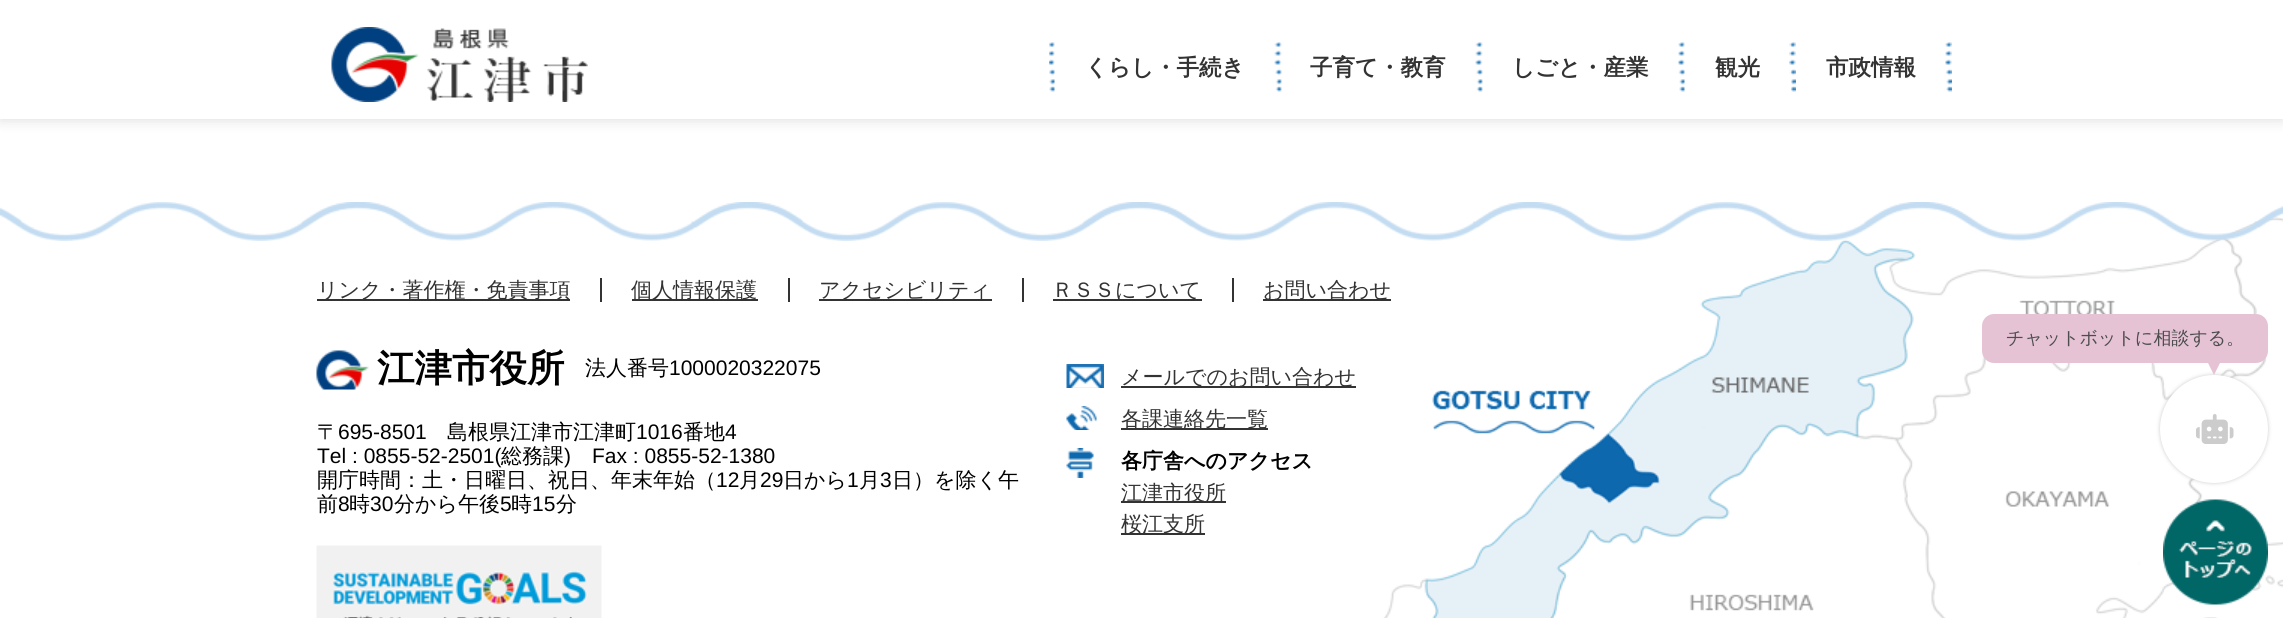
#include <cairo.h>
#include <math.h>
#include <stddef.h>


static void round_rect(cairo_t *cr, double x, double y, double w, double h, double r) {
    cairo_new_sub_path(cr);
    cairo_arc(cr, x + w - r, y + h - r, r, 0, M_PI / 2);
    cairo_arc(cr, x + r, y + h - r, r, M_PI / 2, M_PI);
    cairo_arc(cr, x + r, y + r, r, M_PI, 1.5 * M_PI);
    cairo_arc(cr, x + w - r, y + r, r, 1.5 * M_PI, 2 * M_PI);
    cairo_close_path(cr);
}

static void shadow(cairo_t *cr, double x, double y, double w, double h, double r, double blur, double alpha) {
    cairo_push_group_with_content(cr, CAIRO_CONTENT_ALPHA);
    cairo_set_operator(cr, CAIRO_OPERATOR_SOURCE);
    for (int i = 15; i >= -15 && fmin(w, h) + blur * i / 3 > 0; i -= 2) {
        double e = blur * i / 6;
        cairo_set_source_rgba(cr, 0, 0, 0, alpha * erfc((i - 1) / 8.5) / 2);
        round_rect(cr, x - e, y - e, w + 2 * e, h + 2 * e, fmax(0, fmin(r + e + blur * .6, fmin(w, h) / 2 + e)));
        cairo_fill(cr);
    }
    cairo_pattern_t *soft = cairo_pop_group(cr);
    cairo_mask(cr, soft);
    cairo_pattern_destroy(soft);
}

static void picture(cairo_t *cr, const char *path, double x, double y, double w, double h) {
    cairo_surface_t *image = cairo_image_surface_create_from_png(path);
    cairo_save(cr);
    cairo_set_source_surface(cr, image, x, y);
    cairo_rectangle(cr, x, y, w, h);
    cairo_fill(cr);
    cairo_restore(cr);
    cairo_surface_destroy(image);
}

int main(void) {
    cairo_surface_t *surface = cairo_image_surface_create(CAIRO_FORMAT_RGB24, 2283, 618);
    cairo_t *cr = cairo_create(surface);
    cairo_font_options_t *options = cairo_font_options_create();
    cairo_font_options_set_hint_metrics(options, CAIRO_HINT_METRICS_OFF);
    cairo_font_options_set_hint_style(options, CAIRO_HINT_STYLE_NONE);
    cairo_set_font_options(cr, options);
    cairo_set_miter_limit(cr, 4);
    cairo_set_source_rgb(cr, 1, 1, 1);
    cairo_paint(cr);
    cairo_set_source_rgb(cr, 0, 0, 0);
    shadow(cr, 0, 0, 2283, 119, 0, 7.5, 0.15);
    cairo_set_source_rgb(cr, 1, 1, 1);
    cairo_rectangle(cr, 0, 0, 2283, 119);
    cairo_fill(cr);
    picture(cr, "img1.png", 331, 27, 257, 75);
    picture(cr, "img2.png", 1049, 42, 233, 50);
    cairo_select_font_face(cr, "WenQuanYi Zen Hei", CAIRO_FONT_SLANT_NORMAL, CAIRO_FONT_WEIGHT_BOLD);
    cairo_set_font_size(cr, 22.5);
    cairo_set_source_rgb(cr, 0.2, 0.2, 0.2);
    cairo_move_to(cr, 1085, 75);
    cairo_show_text(cr, "くらし・手続き");
    picture(cr, "img3.png", 1475, 42, 8, 50);
    cairo_move_to(cr, 1310, 75);
    cairo_show_text(cr, "子育て・教育");
    picture(cr, "img4.png", 1678, 42, 7, 50);
    cairo_move_to(cr, 1512, 75);
    cairo_show_text(cr, "しごと・産業");
    picture(cr, "img5.png", 1789, 42, 7, 50);
    cairo_move_to(cr, 1715, 75);
    cairo_show_text(cr, "観光");
    picture(cr, "img6.png", 1945, 42, 7, 50);
    cairo_move_to(cr, 1826, 75);
    cairo_show_text(cr, "市政情報");
    picture(cr, "img7.png", 0, 202, 2283, 416);
    cairo_rectangle(cr, 600, 278, 2, 24);
    cairo_fill(cr);
    cairo_rectangle(cr, 317, 299, 253, 2);
    cairo_fill(cr);
    cairo_select_font_face(cr, "WenQuanYi Zen Hei Medium", CAIRO_FONT_SLANT_NORMAL, CAIRO_FONT_WEIGHT_NORMAL);
    cairo_set_font_size(cr, 21);
    cairo_move_to(cr, 317, 297);
    cairo_show_text(cr, "リンク・著作権・免責事項");
    cairo_rectangle(cr, 788, 278, 2, 24);
    cairo_fill(cr);
    cairo_rectangle(cr, 632, 299, 126, 2);
    cairo_fill(cr);
    cairo_move_to(cr, 631, 297);
    cairo_show_text(cr, "個人情報保護");
    cairo_rectangle(cr, 1022, 278, 2, 24);
    cairo_fill(cr);
    cairo_rectangle(cr, 819, 299, 173, 2);
    cairo_fill(cr);
    cairo_move_to(cr, 819, 297);
    cairo_show_text(cr, "アクセシビリティ");
    cairo_rectangle(cr, 1232, 278, 2, 24);
    cairo_fill(cr);
    cairo_rectangle(cr, 1053, 299, 149, 2);
    cairo_fill(cr);
    cairo_move_to(cr, 1052, 297);
    cairo_show_text(cr, "ＲＳＳについて");
    cairo_rectangle(cr, 1263, 299, 128, 2);
    cairo_fill(cr);
    cairo_move_to(cr, 1263, 297);
    cairo_show_text(cr, "お問い合わせ");
    picture(cr, "img8.png", 316, 350, 53, 40);
    cairo_select_font_face(cr, "WenQuanYi Zen Hei", CAIRO_FONT_SLANT_NORMAL, CAIRO_FONT_WEIGHT_BOLD);
    cairo_set_font_size(cr, 37.5);
    cairo_set_source_rgb(cr, 0, 0, 0);
    cairo_move_to(cr, 377, 381);
    cairo_show_text(cr, "江津市役所");
    cairo_select_font_face(cr, "WenQuanYi Zen Hei Medium", CAIRO_FONT_SLANT_NORMAL, CAIRO_FONT_WEIGHT_NORMAL);
    cairo_set_font_size(cr, 21);
    cairo_move_to(cr, 585, 375);
    cairo_show_text(cr, "法人番号");
    cairo_select_font_face(cr, "Liberation Sans", CAIRO_FONT_SLANT_NORMAL, CAIRO_FONT_WEIGHT_NORMAL);
    cairo_move_to(cr, 669, 375);
    cairo_show_text(cr, "1000020322075");
    cairo_select_font_face(cr, "WenQuanYi Zen Hei Medium", CAIRO_FONT_SLANT_NORMAL, CAIRO_FONT_WEIGHT_NORMAL);
    cairo_move_to(cr, 317, 439);
    cairo_show_text(cr, "〒");
    cairo_select_font_face(cr, "Liberation Sans", CAIRO_FONT_SLANT_NORMAL, CAIRO_FONT_WEIGHT_NORMAL);
    cairo_move_to(cr, 338, 439);
    cairo_show_text(cr, "695-8501");
    cairo_select_font_face(cr, "WenQuanYi Zen Hei Medium", CAIRO_FONT_SLANT_NORMAL, CAIRO_FONT_WEIGHT_NORMAL);
    cairo_move_to(cr, 447, 439);
    cairo_show_text(cr, "島根県江津市江津町");
    cairo_select_font_face(cr, "Liberation Sans", CAIRO_FONT_SLANT_NORMAL, CAIRO_FONT_WEIGHT_NORMAL);
    cairo_move_to(cr, 636, 439);
    cairo_show_text(cr, "1016");
    cairo_select_font_face(cr, "WenQuanYi Zen Hei Medium", CAIRO_FONT_SLANT_NORMAL, CAIRO_FONT_WEIGHT_NORMAL);
    cairo_move_to(cr, 683, 439);
    cairo_show_text(cr, "番地");
    cairo_select_font_face(cr, "Liberation Sans", CAIRO_FONT_SLANT_NORMAL, CAIRO_FONT_WEIGHT_NORMAL);
    cairo_move_to(cr, 725, 439);
    cairo_show_text(cr, "4");
    cairo_move_to(cr, 317, 463);
    cairo_show_text(cr, "Tel : 0855-52-2501(");
    cairo_select_font_face(cr, "WenQuanYi Zen Hei Medium", CAIRO_FONT_SLANT_NORMAL, CAIRO_FONT_WEIGHT_NORMAL);
    cairo_move_to(cr, 501, 463);
    cairo_show_text(cr, "総務課");
    cairo_select_font_face(cr, "Liberation Sans", CAIRO_FONT_SLANT_NORMAL, CAIRO_FONT_WEIGHT_NORMAL);
    cairo_move_to(cr, 564, 463);
    cairo_show_text(cr, ")");
    cairo_move_to(cr, 592, 463);
    cairo_show_text(cr, "Fax : 0855-52-1380");
    cairo_select_font_face(cr, "WenQuanYi Zen Hei Medium", CAIRO_FONT_SLANT_NORMAL, CAIRO_FONT_WEIGHT_NORMAL);
    cairo_move_to(cr, 317, 487);
    cairo_show_text(cr, "開庁時間：土・日曜日、祝日、年末年始（");
    cairo_select_font_face(cr, "Liberation Sans", CAIRO_FONT_SLANT_NORMAL, CAIRO_FONT_WEIGHT_NORMAL);
    cairo_move_to(cr, 716, 487);
    cairo_show_text(cr, "12");
    cairo_select_font_face(cr, "WenQuanYi Zen Hei Medium", CAIRO_FONT_SLANT_NORMAL, CAIRO_FONT_WEIGHT_NORMAL);
    cairo_move_to(cr, 739, 487);
    cairo_show_text(cr, "月");
    cairo_select_font_face(cr, "Liberation Sans", CAIRO_FONT_SLANT_NORMAL, CAIRO_FONT_WEIGHT_NORMAL);
    cairo_move_to(cr, 760, 487);
    cairo_show_text(cr, "29");
    cairo_select_font_face(cr, "WenQuanYi Zen Hei Medium", CAIRO_FONT_SLANT_NORMAL, CAIRO_FONT_WEIGHT_NORMAL);
    cairo_move_to(cr, 783, 487);
    cairo_show_text(cr, "日から");
    cairo_select_font_face(cr, "Liberation Sans", CAIRO_FONT_SLANT_NORMAL, CAIRO_FONT_WEIGHT_NORMAL);
    cairo_move_to(cr, 847, 487);
    cairo_show_text(cr, "1");
    cairo_select_font_face(cr, "WenQuanYi Zen Hei Medium", CAIRO_FONT_SLANT_NORMAL, CAIRO_FONT_WEIGHT_NORMAL);
    cairo_move_to(cr, 859, 487);
    cairo_show_text(cr, "月");
    cairo_select_font_face(cr, "Liberation Sans", CAIRO_FONT_SLANT_NORMAL, CAIRO_FONT_WEIGHT_NORMAL);
    cairo_move_to(cr, 880, 487);
    cairo_show_text(cr, "3");
    cairo_select_font_face(cr, "WenQuanYi Zen Hei Medium", CAIRO_FONT_SLANT_NORMAL, CAIRO_FONT_WEIGHT_NORMAL);
    cairo_move_to(cr, 892, 487);
    cairo_show_text(cr, "日）を除く午");
    cairo_move_to(cr, 317, 511);
    cairo_show_text(cr, "前");
    cairo_select_font_face(cr, "Liberation Sans", CAIRO_FONT_SLANT_NORMAL, CAIRO_FONT_WEIGHT_NORMAL);
    cairo_move_to(cr, 338, 511);
    cairo_show_text(cr, "8");
    cairo_select_font_face(cr, "WenQuanYi Zen Hei Medium", CAIRO_FONT_SLANT_NORMAL, CAIRO_FONT_WEIGHT_NORMAL);
    cairo_move_to(cr, 349, 511);
    cairo_show_text(cr, "時");
    cairo_select_font_face(cr, "Liberation Sans", CAIRO_FONT_SLANT_NORMAL, CAIRO_FONT_WEIGHT_NORMAL);
    cairo_move_to(cr, 370, 511);
    cairo_show_text(cr, "30");
    cairo_select_font_face(cr, "WenQuanYi Zen Hei Medium", CAIRO_FONT_SLANT_NORMAL, CAIRO_FONT_WEIGHT_NORMAL);
    cairo_move_to(cr, 394, 511);
    cairo_show_text(cr, "分から午後");
    cairo_select_font_face(cr, "Liberation Sans", CAIRO_FONT_SLANT_NORMAL, CAIRO_FONT_WEIGHT_NORMAL);
    cairo_move_to(cr, 500, 511);
    cairo_show_text(cr, "5");
    cairo_select_font_face(cr, "WenQuanYi Zen Hei Medium", CAIRO_FONT_SLANT_NORMAL, CAIRO_FONT_WEIGHT_NORMAL);
    cairo_move_to(cr, 511, 511);
    cairo_show_text(cr, "時");
    cairo_select_font_face(cr, "Liberation Sans", CAIRO_FONT_SLANT_NORMAL, CAIRO_FONT_WEIGHT_NORMAL);
    cairo_move_to(cr, 532, 511);
    cairo_show_text(cr, "15");
    cairo_select_font_face(cr, "WenQuanYi Zen Hei Medium", CAIRO_FONT_SLANT_NORMAL, CAIRO_FONT_WEIGHT_NORMAL);
    cairo_move_to(cr, 556, 511);
    cairo_show_text(cr, "分");
    picture(cr, "img9.png", 316, 545, 286, 73);
    picture(cr, "img10.png", 1066, 364, 38, 24);
    cairo_set_source_rgb(cr, 0.2, 0.2, 0.2);
    cairo_rectangle(cr, 1121, 386, 235, 2);
    cairo_fill(cr);
    cairo_move_to(cr, 1121, 384);
    cairo_show_text(cr, "メールでのお問い合わせ");
    picture(cr, "img11.png", 1066, 406, 31, 24);
    cairo_rectangle(cr, 1121, 428, 147, 2);
    cairo_fill(cr);
    cairo_move_to(cr, 1121, 426);
    cairo_show_text(cr, "各課連絡先一覧");
    picture(cr, "img12.png", 1066, 448, 28, 30);
    cairo_select_font_face(cr, "WenQuanYi Zen Hei", CAIRO_FONT_SLANT_NORMAL, CAIRO_FONT_WEIGHT_BOLD);
    cairo_set_source_rgb(cr, 0, 0, 0);
    cairo_move_to(cr, 1121, 468);
    cairo_show_text(cr, "各庁舎へのアクセス");
    cairo_set_source_rgb(cr, 0.2, 0.2, 0.2);
    cairo_rectangle(cr, 1121, 501, 105, 2);
    cairo_fill(cr);
    cairo_select_font_face(cr, "WenQuanYi Zen Hei Medium", CAIRO_FONT_SLANT_NORMAL, CAIRO_FONT_WEIGHT_NORMAL);
    cairo_move_to(cr, 1121, 500);
    cairo_show_text(cr, "江津市役所");
    cairo_rectangle(cr, 1121, 533, 84, 2);
    cairo_fill(cr);
    cairo_move_to(cr, 1121, 531);
    cairo_show_text(cr, "桜江支所");
    picture(cr, "img13.png", 2163, 499, 105, 106);
    cairo_set_source_rgb(cr, 0.8, 0.8, 0.8);
    shadow(cr, 2160, 375, 108, 108, 54, 2, 1);
    cairo_set_source_rgb(cr, 1, 1, 1);
    cairo_arc(cr, 2214, 429, 54, 0, 2 * M_PI);
    cairo_fill(cr);
    cairo_set_source_rgb(cr, 0.898, 0.765, 0.835);
    round_rect(cr, 1982, 314, 286, 49, 12);
    cairo_fill(cr);
    cairo_set_font_size(cr, 18);
    cairo_set_source_rgb(cr, 0.302, 0.302, 0.302);
    cairo_move_to(cr, 2006, 344);
    cairo_show_text(cr, "チャットボットに相談する。");
    cairo_set_source_rgb(cr, 0.898, 0.765, 0.835);
    cairo_new_path(cr);
    cairo_move_to(cr, 2208, 363);
    cairo_line_to(cr, 2220, 363);
    cairo_line_to(cr, 2214, 375);
    cairo_close_path(cr);
    cairo_fill(cr);
    picture(cr, "img14.png", 2196, 414, 38, 30);
    cairo_surface_write_to_png(surface, "page.png");
    cairo_font_options_destroy(options);
    cairo_destroy(cr);
    cairo_surface_destroy(surface);
    return 0;
}
